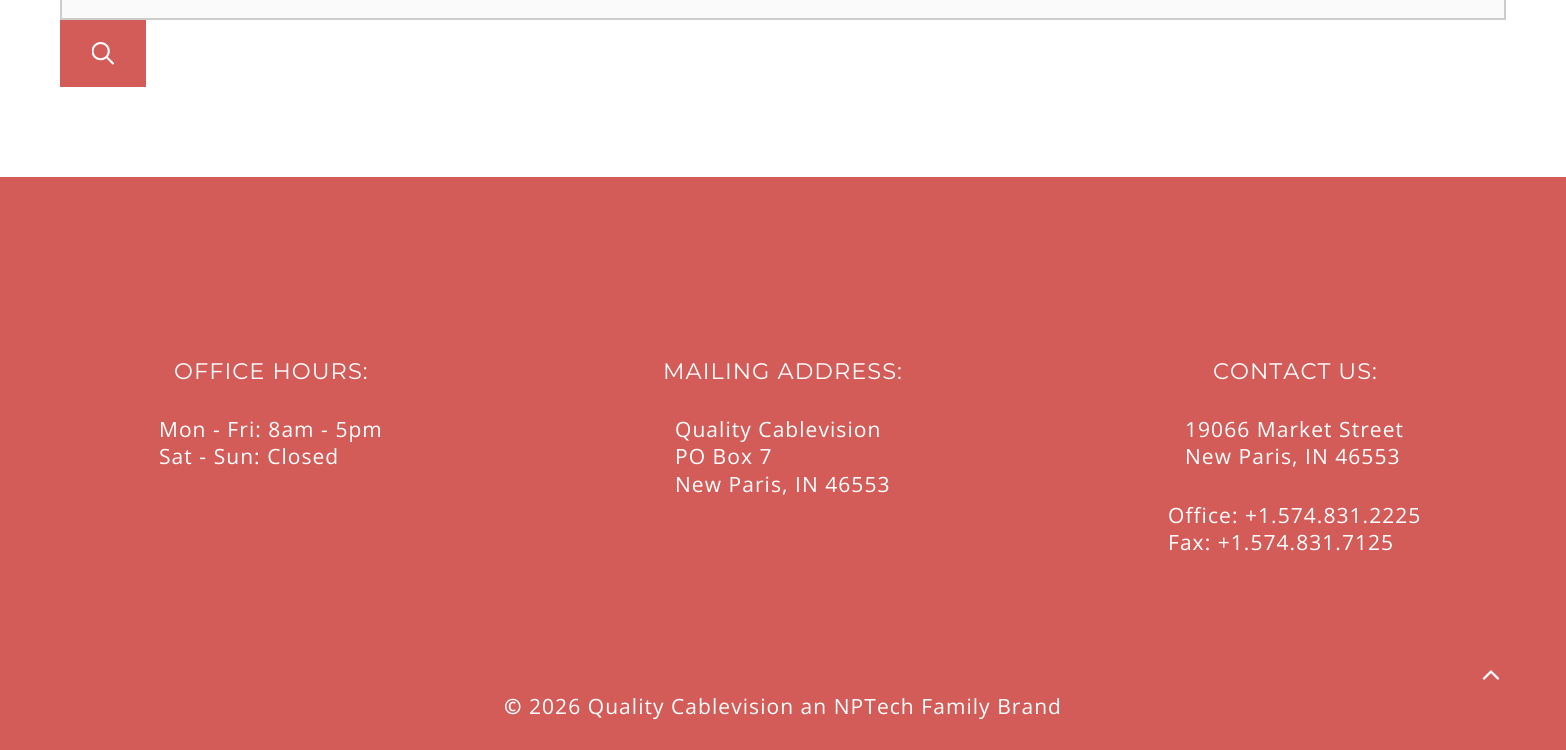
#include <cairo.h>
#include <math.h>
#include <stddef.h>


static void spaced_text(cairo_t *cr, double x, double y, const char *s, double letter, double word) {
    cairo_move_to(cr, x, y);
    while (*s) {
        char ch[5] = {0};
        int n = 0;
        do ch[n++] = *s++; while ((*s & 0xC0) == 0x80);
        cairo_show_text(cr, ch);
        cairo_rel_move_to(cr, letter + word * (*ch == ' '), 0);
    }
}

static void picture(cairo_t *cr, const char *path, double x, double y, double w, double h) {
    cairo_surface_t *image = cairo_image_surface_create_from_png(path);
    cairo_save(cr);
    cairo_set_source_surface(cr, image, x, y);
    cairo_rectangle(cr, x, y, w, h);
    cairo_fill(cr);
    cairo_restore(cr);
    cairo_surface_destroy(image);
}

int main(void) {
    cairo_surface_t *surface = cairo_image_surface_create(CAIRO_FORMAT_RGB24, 1566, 750);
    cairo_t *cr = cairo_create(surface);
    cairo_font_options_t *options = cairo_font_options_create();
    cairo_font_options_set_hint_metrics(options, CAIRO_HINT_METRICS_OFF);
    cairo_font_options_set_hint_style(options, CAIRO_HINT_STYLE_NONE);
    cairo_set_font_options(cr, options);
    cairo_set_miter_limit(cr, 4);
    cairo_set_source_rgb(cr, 1, 1, 1);
    cairo_paint(cr);
    cairo_set_source_rgb(cr, 0.98, 0.98, 0.98);
    cairo_rectangle(cr, 61, -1, 1444, 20);
    cairo_fill_preserve(cr);
    cairo_set_source_rgb(cr, 0.8, 0.8, 0.8);
    cairo_stroke(cr);
    cairo_set_source_rgb(cr, 0.827, 0.361, 0.345);
    cairo_rectangle(cr, 60, 20, 86, 67);
    cairo_fill(cr);
    picture(cr, "img1.png", 92, 42, 22, 23);
    cairo_rectangle(cr, 0, 177, 1566, 573);
    cairo_fill(cr);
    cairo_select_font_face(cr, "Montserrat", CAIRO_FONT_SLANT_NORMAL, CAIRO_FONT_WEIGHT_NORMAL);
    cairo_set_font_size(cr, 22.5);
    cairo_set_source_rgb(cr, 1, 1, 1);
    spaced_text(cr, 174, 379, "OFFICE HOURS:", 1.05, 0);
    cairo_select_font_face(cr, "Open Sans", CAIRO_FONT_SLANT_NORMAL, CAIRO_FONT_WEIGHT_NORMAL);
    cairo_set_font_size(cr, 21);
    spaced_text(cr, 159, 437, "Mon - Fri: 8am - 5pm", 1.05, 0);
    spaced_text(cr, 159, 464, "Sat - Sun: Closed", 1.05, 0);
    cairo_select_font_face(cr, "Montserrat", CAIRO_FONT_SLANT_NORMAL, CAIRO_FONT_WEIGHT_NORMAL);
    cairo_set_font_size(cr, 22.5);
    spaced_text(cr, 663, 379, "MAILING ADDRESS:", 1.05, 0);
    cairo_select_font_face(cr, "Open Sans", CAIRO_FONT_SLANT_NORMAL, CAIRO_FONT_WEIGHT_NORMAL);
    cairo_set_font_size(cr, 21);
    spaced_text(cr, 675, 437, "Quality Cablevision", 1.05, 0);
    spaced_text(cr, 675, 464, "PO Box 7", 1.05, 0);
    spaced_text(cr, 675, 492, "New Paris, IN 46553", 1.05, 0);
    cairo_select_font_face(cr, "Montserrat", CAIRO_FONT_SLANT_NORMAL, CAIRO_FONT_WEIGHT_NORMAL);
    cairo_set_font_size(cr, 22.5);
    spaced_text(cr, 1213, 379, "CONTACT US:", 1.05, 0);
    cairo_select_font_face(cr, "Open Sans", CAIRO_FONT_SLANT_NORMAL, CAIRO_FONT_WEIGHT_NORMAL);
    cairo_set_font_size(cr, 21);
    spaced_text(cr, 1185, 437, "19066 Market Street", 1.05, 0);
    spaced_text(cr, 1185, 464, "New Paris, IN 46553", 1.05, 0);
    spaced_text(cr, 1168, 523, "Office: +1.574.831.2225", 1.05, 0);
    spaced_text(cr, 1168, 550, "Fax: +1.574.831.7125", 1.05, 0);
    cairo_select_font_face(cr, "Open Sans", CAIRO_FONT_SLANT_NORMAL, CAIRO_FONT_WEIGHT_BOLD);
    spaced_text(cr, 504, 714, "©", 1.05, 0);
    cairo_select_font_face(cr, "Open Sans", CAIRO_FONT_SLANT_NORMAL, CAIRO_FONT_WEIGHT_NORMAL);
    spaced_text(cr, 529, 714, "2026 Quality Cablevision an NPTech Family Brand", 1.05, 0);
    picture(cr, "img2.png", 1482, 670, 18, 10);
    cairo_surface_write_to_png(surface, "page.png");
    cairo_font_options_destroy(options);
    cairo_destroy(cr);
    cairo_surface_destroy(surface);
    return 0;
}
